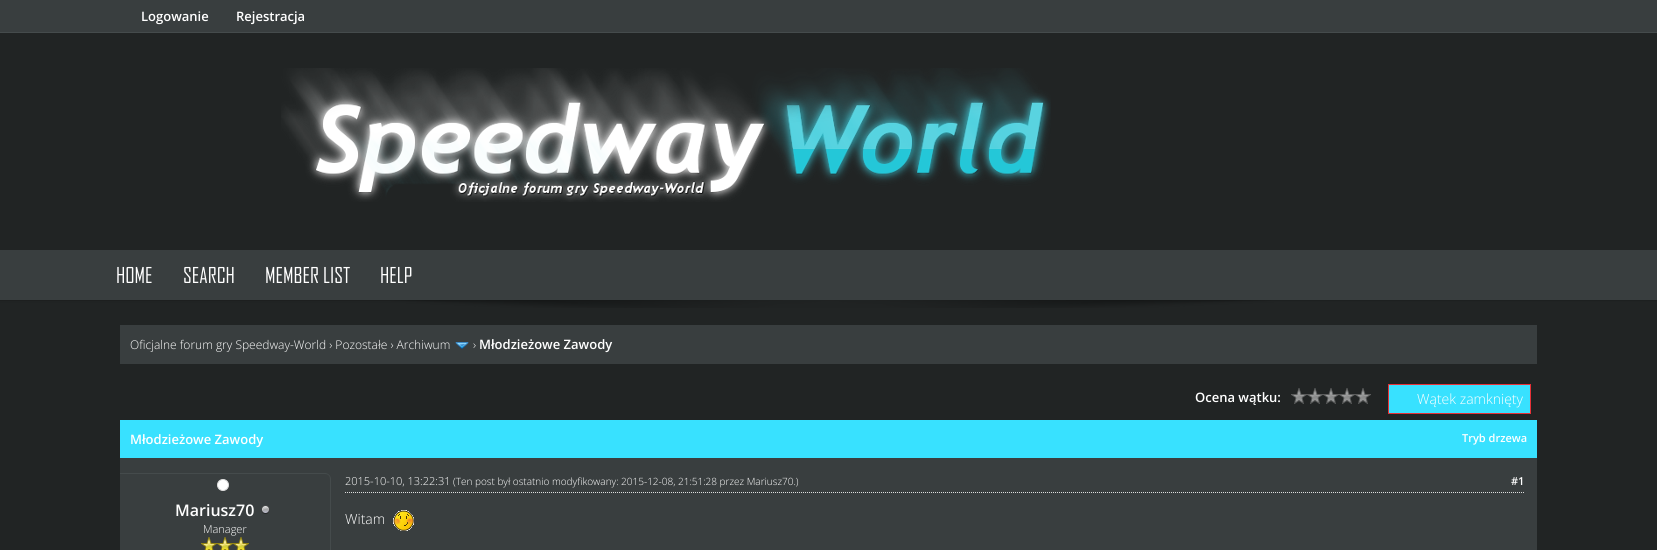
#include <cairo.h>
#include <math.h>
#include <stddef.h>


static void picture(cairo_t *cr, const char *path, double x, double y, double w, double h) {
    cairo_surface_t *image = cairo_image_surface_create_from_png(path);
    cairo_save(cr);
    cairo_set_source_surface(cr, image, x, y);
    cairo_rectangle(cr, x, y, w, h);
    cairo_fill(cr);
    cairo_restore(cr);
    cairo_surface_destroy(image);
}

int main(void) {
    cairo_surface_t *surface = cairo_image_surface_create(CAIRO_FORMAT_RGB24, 1657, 550);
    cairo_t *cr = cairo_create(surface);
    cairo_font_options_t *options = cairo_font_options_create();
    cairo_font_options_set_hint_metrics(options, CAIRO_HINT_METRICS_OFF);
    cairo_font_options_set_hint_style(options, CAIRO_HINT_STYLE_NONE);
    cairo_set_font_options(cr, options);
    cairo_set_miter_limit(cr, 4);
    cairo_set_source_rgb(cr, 0.129, 0.141, 0.141);
    cairo_paint(cr);
    cairo_set_source_rgb(cr, 0.224, 0.243, 0.247);
    cairo_rectangle(cr, 0, 0, 1657, 32);
    cairo_fill(cr);
    cairo_set_source_rgb(cr, 0.271, 0.294, 0.298);
    cairo_rectangle(cr, 0, 32, 1657, 1);
    cairo_fill(cr);
    cairo_select_font_face(cr, "Open Sans SemiBold", CAIRO_FONT_SLANT_NORMAL, CAIRO_FONT_WEIGHT_NORMAL);
    cairo_set_font_size(cr, 13);
    cairo_set_source_rgb(cr, 1, 1, 1);
    cairo_move_to(cr, 141, 21);
    cairo_show_text(cr, "Logowanie");
    cairo_move_to(cr, 236, 21);
    cairo_show_text(cr, "Rejestracja");
    picture(cr, "img1.png", 281, 68, 770, 134);
    cairo_set_source_rgb(cr, 0.224, 0.243, 0.247);
    cairo_rectangle(cr, 0, 250, 1657, 50);
    cairo_fill(cr);
    cairo_select_font_face(cr, "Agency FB", CAIRO_FONT_SLANT_NORMAL, CAIRO_FONT_WEIGHT_NORMAL);
    cairo_set_font_size(cr, 21);
    cairo_set_source_rgb(cr, 1, 1, 1);
    cairo_move_to(cr, 116, 283);
    cairo_show_text(cr, "HOME");
    cairo_move_to(cr, 183, 283);
    cairo_show_text(cr, "SEARCH");
    cairo_move_to(cr, 265, 283);
    cairo_show_text(cr, "MEMBER LIST");
    cairo_move_to(cr, 380, 283);
    cairo_show_text(cr, "HELP");
    picture(cr, "img2.png", 0, 300, 1657, 8);
    cairo_set_source_rgb(cr, 0.224, 0.243, 0.247);
    cairo_rectangle(cr, 120, 325, 1417, 39);
    cairo_fill(cr);
    cairo_select_font_face(cr, "Open Sans Light", CAIRO_FONT_SLANT_NORMAL, CAIRO_FONT_WEIGHT_NORMAL);
    cairo_set_font_size(cr, 12);
    cairo_set_source_rgb(cr, 1, 1, 1);
    cairo_move_to(cr, 130, 349);
    cairo_show_text(cr, "Oficjalne forum gry Speedway-World › Pozostałe › Archiwum");
    picture(cr, "img3.png", 455, 342, 14, 7);
    cairo_move_to(cr, 473, 349);
    cairo_show_text(cr, "›");
    cairo_select_font_face(cr, "Open Sans SemiBold", CAIRO_FONT_SLANT_NORMAL, CAIRO_FONT_WEIGHT_NORMAL);
    cairo_set_font_size(cr, 13);
    cairo_move_to(cr, 479, 349);
    cairo_show_text(cr, "Młodzieżowe Zawody");
    cairo_move_to(cr, 1195, 402);
    cairo_show_text(cr, "Ocena wątku:");
    picture(cr, "img4.png", 1291, 388, 80, 16);
    cairo_set_source_rgb(cr, 0.22, 0.882, 1);
    cairo_rectangle(cr, 1388.5, 384.5, 142, 29);
    cairo_fill_preserve(cr);
    cairo_set_source_rgb(cr, 0.91, 0.192, 0.216);
    cairo_set_line_width(cr, 1);
    cairo_stroke(cr);
    cairo_select_font_face(cr, "Open Sans Light", CAIRO_FONT_SLANT_NORMAL, CAIRO_FONT_WEIGHT_NORMAL);
    cairo_set_font_size(cr, 14);
    cairo_set_source_rgb(cr, 1, 1, 1);
    cairo_move_to(cr, 1417, 404);
    cairo_show_text(cr, "Wątek zamknięty");
    cairo_set_source_rgb(cr, 0.22, 0.882, 1);
    cairo_rectangle(cr, 120, 420, 1417, 38);
    cairo_fill(cr);
    cairo_select_font_face(cr, "Open Sans SemiBold", CAIRO_FONT_SLANT_NORMAL, CAIRO_FONT_WEIGHT_NORMAL);
    cairo_set_font_size(cr, 13);
    cairo_set_source_rgb(cr, 1, 1, 1);
    cairo_move_to(cr, 130, 444);
    cairo_show_text(cr, "Młodzieżowe Zawody");
    cairo_set_font_size(cr, 11);
    cairo_move_to(cr, 1462, 442);
    cairo_show_text(cr, "Tryb drzewa");
    cairo_set_source_rgb(cr, 0.224, 0.243, 0.247);
    cairo_rectangle(cr, 120, 458, 1417, 92);
    cairo_fill(cr);
    cairo_set_source_rgb(cr, 0.271, 0.294, 0.298);
    cairo_set_fill_rule(cr, CAIRO_FILL_RULE_EVEN_ODD);
    cairo_new_path(cr);
    cairo_move_to(cr, 120, 473);
    cairo_line_to(cr, 325, 473);
    cairo_curve_to(cr, 328, 473, 331, 476, 331, 479);
    cairo_line_to(cr, 331, 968);
    cairo_curve_to(cr, 331, 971, 328, 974, 325, 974);
    cairo_line_to(cr, 120, 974);
    cairo_close_path(cr);
    cairo_move_to(cr, 120, 474);
    cairo_line_to(cr, 325, 474);
    cairo_curve_to(cr, 328, 474, 330, 476, 330, 479);
    cairo_line_to(cr, 330, 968);
    cairo_curve_to(cr, 330, 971, 328, 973, 325, 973);
    cairo_line_to(cr, 120, 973);
    cairo_close_path(cr);
    cairo_fill(cr);
    cairo_set_source_rgb(cr, 1, 1, 1);
    cairo_arc(cr, 223, 485, 5.5, 0, 2 * M_PI);
    cairo_fill_preserve(cr);
    cairo_set_source_rgb(cr, 0.867, 0.867, 0.867);
    cairo_stroke(cr);
    cairo_set_font_size(cr, 16);
    cairo_set_source_rgb(cr, 1, 1, 1);
    cairo_move_to(cr, 175, 516);
    cairo_show_text(cr, "Mariusz70");
    picture(cr, "img5.png", 261, 505, 9, 9);
    cairo_select_font_face(cr, "Open Sans Light", CAIRO_FONT_SLANT_NORMAL, CAIRO_FONT_WEIGHT_NORMAL);
    cairo_set_font_size(cr, 11);
    cairo_move_to(cr, 203, 533);
    cairo_show_text(cr, "Manager");
    picture(cr, "img6.png", 201, 537, 16, 13);
    picture(cr, "img6.png", 217, 537, 16, 13);
    picture(cr, "img6.png", 233, 537, 16, 13);
    cairo_new_path(cr);
    cairo_move_to(cr, 345, 492.5);
    cairo_line_to(cr, 1525, 492.5);
    cairo_set_source_rgb(cr, 0.867, 0.867, 0.867);
    cairo_set_dash(cr, (double[]){1, 1}, 2, 0);
    cairo_stroke(cr);
    cairo_set_source_rgb(cr, 1, 1, 1);
    cairo_move_to(cr, 345, 485);
    cairo_show_text(cr, "2015-10-10, 13:22:31");
    cairo_set_font_size(cr, 10);
    cairo_move_to(cr, 453, 485);
    cairo_show_text(cr, "(Ten post był ostatnio modyfikowany: 2015-12-08, 21:51:28 przez Mariusz70.)");
    cairo_select_font_face(cr, "Open Sans SemiBold", CAIRO_FONT_SLANT_NORMAL, CAIRO_FONT_WEIGHT_NORMAL);
    cairo_set_font_size(cr, 11);
    cairo_move_to(cr, 1511, 485);
    cairo_show_text(cr, "#1");
    cairo_select_font_face(cr, "Open Sans Light", CAIRO_FONT_SLANT_NORMAL, CAIRO_FONT_WEIGHT_NORMAL);
    cairo_set_font_size(cr, 14);
    cairo_move_to(cr, 345, 524);
    cairo_show_text(cr, "Witam");
    picture(cr, "img7.png", 393, 510, 21, 21);
    cairo_surface_write_to_png(surface, "page.png");
    cairo_font_options_destroy(options);
    cairo_destroy(cr);
    cairo_surface_destroy(surface);
    return 0;
}
